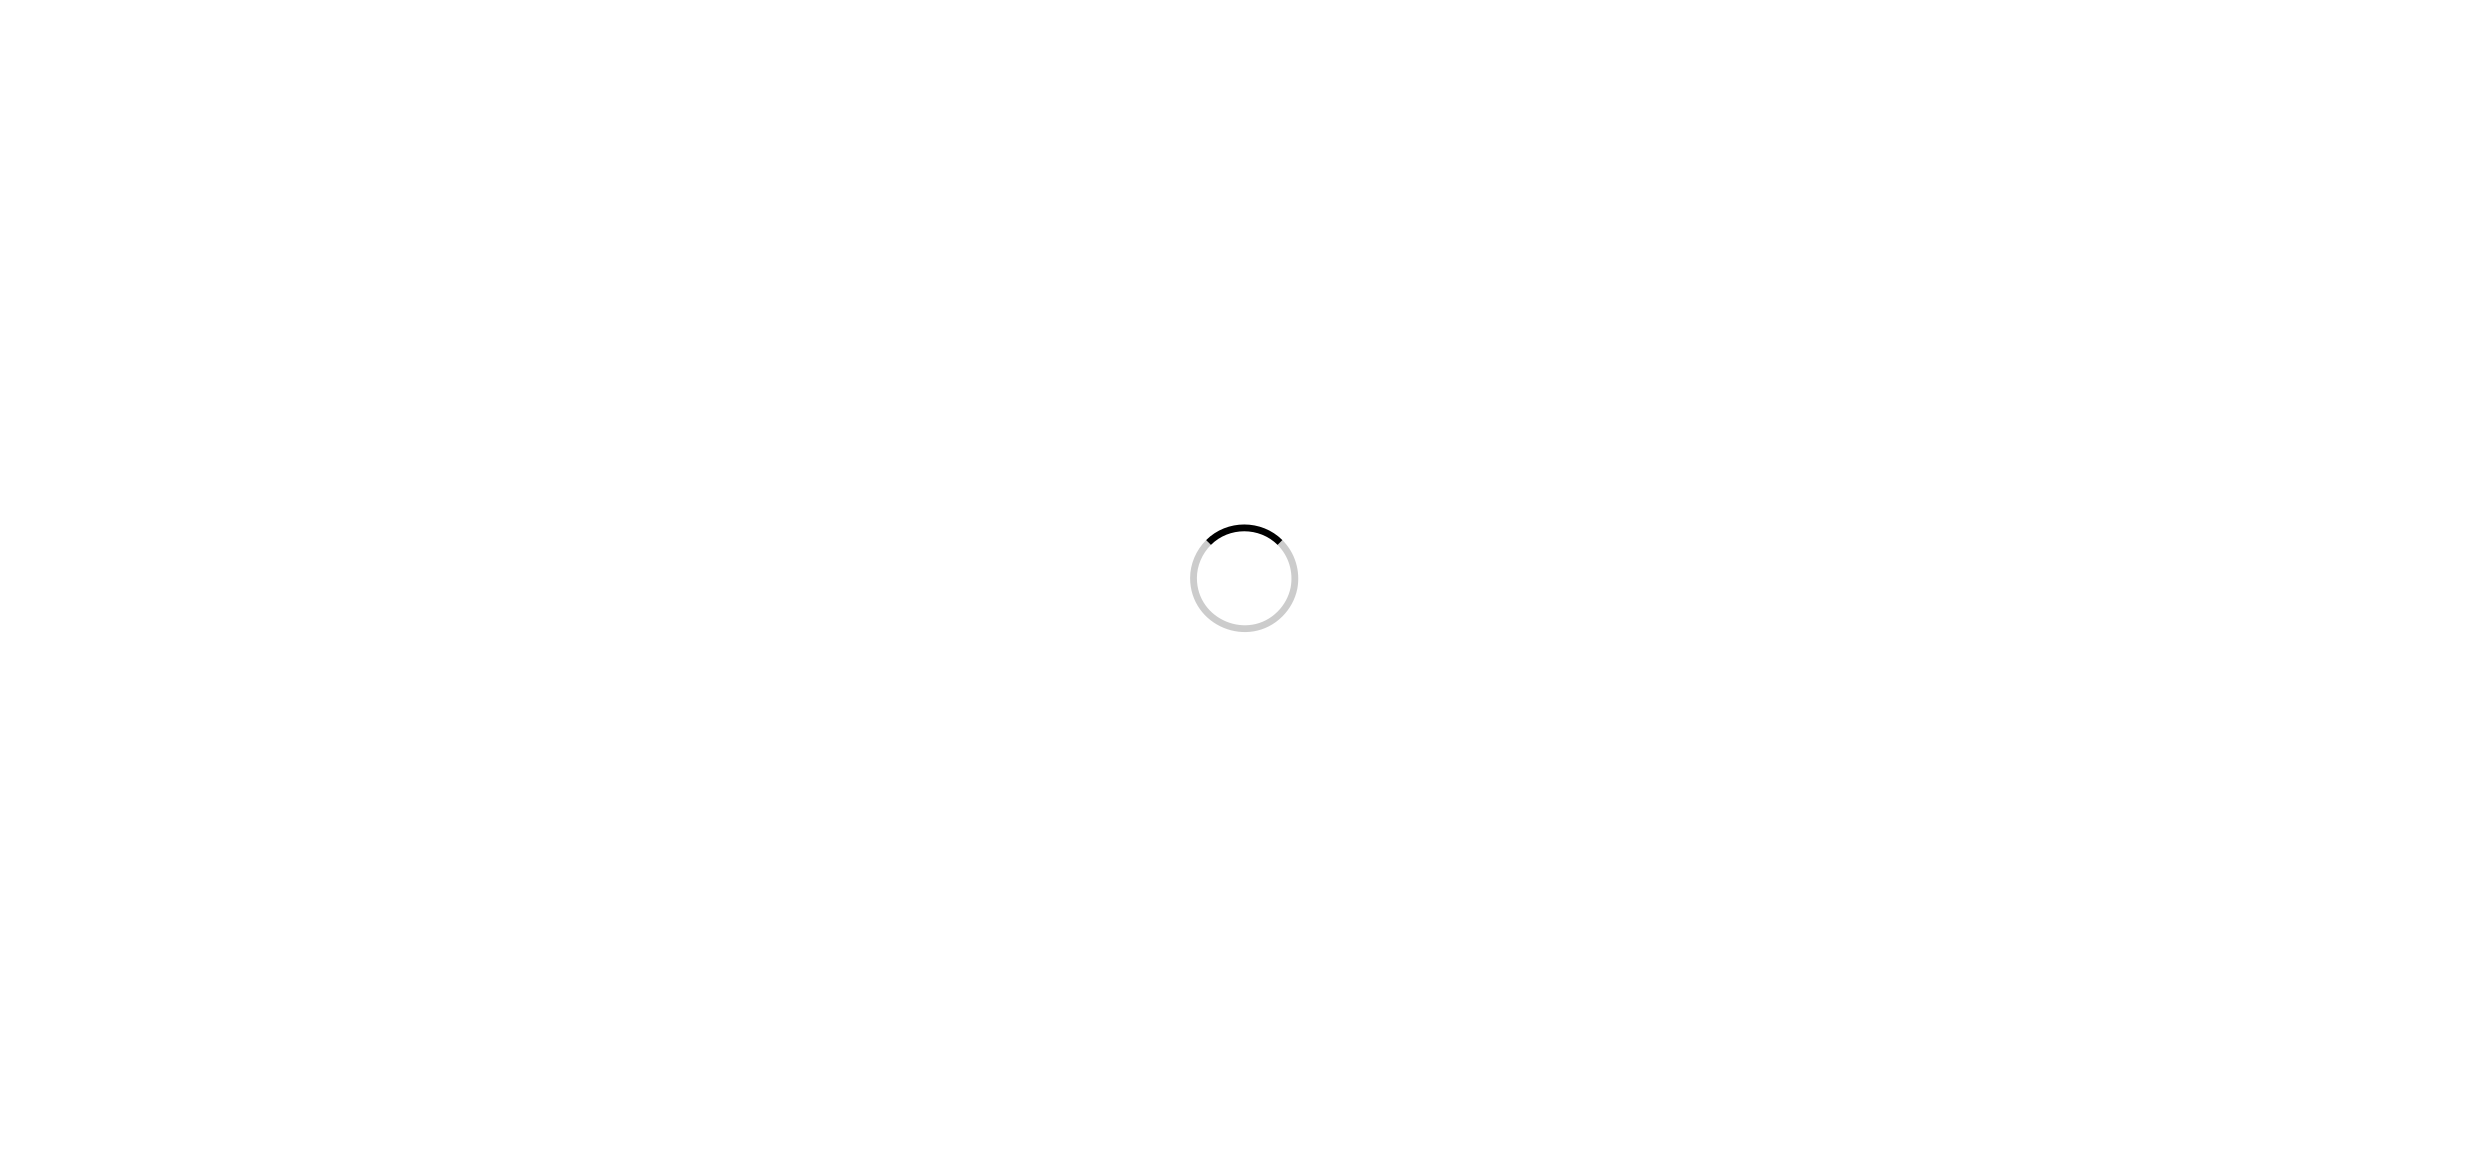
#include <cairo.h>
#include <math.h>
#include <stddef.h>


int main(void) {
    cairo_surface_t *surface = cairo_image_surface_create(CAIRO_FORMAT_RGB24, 2487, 1153);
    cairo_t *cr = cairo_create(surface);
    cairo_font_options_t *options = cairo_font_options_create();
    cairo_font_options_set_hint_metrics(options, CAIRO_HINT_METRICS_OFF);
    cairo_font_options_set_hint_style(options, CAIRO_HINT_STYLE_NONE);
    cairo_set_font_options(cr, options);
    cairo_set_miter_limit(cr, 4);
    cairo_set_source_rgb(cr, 1, 1, 1);
    cairo_paint(cr);
    cairo_new_path(cr);
    cairo_move_to(cr, 1208.5, 542.5);
    cairo_curve_to(cr, 1228, 523, 1260.5, 523, 1280, 542.5);
    cairo_set_source_rgb(cr, 0, 0, 0);
    cairo_set_line_width(cr, 6.8);
    cairo_stroke(cr);
    cairo_new_path(cr);
    cairo_move_to(cr, 1280, 542.5);
    cairo_curve_to(cr, 1292, 554.5, 1297, 571.5, 1294, 588);
    cairo_curve_to(cr, 1292, 598, 1287, 607, 1280, 614);
    cairo_curve_to(cr, 1248.5, 645.5, 1193.5, 623, 1193.5, 578);
    cairo_curve_to(cr, 1193.5, 565, 1199, 552, 1208.5, 542.5);
    cairo_set_source_rgba(cr, 0, 0, 0, 0.2);
    cairo_stroke(cr);
    cairo_surface_write_to_png(surface, "page.png");
    cairo_font_options_destroy(options);
    cairo_destroy(cr);
    cairo_surface_destroy(surface);
    return 0;
}
